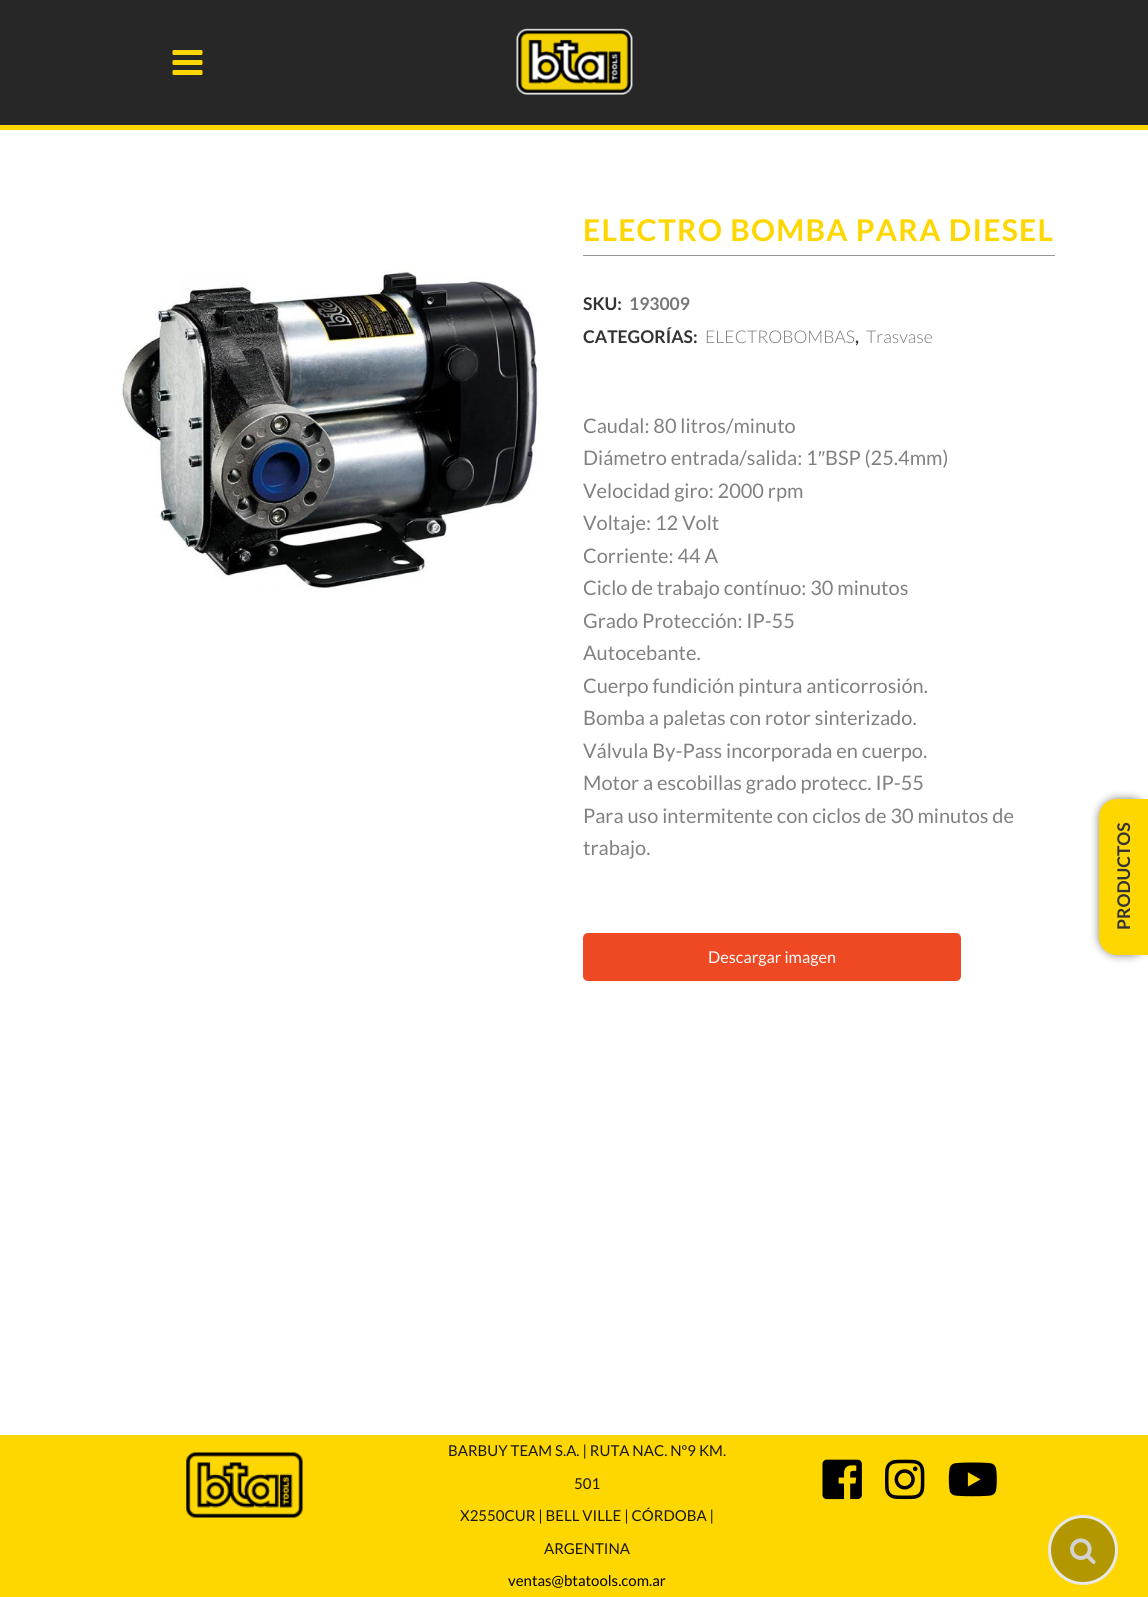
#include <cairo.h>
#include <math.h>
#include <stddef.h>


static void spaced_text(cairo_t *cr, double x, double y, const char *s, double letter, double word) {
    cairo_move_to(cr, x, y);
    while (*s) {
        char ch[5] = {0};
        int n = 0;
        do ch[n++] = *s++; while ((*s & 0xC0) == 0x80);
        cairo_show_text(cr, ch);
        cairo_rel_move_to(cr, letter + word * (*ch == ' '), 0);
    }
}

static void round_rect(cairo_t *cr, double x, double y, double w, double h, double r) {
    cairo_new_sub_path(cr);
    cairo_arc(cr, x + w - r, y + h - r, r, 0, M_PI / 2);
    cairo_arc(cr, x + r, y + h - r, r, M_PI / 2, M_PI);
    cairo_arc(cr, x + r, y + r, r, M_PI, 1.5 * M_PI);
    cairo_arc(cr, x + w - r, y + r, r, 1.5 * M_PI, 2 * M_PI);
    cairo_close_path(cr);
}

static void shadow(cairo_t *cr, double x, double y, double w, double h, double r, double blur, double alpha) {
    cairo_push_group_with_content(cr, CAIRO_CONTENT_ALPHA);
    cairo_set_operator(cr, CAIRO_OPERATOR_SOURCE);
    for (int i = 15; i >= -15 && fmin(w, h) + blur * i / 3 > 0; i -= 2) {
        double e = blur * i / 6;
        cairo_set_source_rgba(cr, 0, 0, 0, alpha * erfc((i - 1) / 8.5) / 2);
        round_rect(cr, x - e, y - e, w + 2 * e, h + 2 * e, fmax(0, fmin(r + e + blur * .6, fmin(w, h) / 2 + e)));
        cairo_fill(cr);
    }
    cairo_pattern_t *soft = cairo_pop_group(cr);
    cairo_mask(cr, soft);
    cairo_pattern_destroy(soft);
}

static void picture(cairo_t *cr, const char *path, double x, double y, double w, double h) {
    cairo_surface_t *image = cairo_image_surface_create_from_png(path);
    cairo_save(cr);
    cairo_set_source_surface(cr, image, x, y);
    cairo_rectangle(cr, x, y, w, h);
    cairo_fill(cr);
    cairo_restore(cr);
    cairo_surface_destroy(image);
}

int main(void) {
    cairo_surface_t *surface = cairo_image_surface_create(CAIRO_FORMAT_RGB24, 1148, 1597);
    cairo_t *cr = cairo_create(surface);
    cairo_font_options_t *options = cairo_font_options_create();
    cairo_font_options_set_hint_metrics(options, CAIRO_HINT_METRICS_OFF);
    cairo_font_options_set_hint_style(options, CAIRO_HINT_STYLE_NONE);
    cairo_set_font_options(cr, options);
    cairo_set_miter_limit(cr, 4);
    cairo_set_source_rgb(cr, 1, 0.843, 0);
    cairo_paint(cr);
    cairo_set_source_rgb(cr, 0.153, 0.153, 0.153);
    cairo_rectangle(cr, 0, 0, 1148, 125);
    cairo_fill(cr);
    picture(cr, "img1.png", 172, 50, 31, 25);
    picture(cr, "img2.png", 516, 28, 117, 67);
    cairo_set_source_rgb(cr, 1, 1, 1);
    cairo_rectangle(cr, 0, 130, 1148, 1305);
    cairo_fill(cr);
    picture(cr, "img3.png", 119, 265, 422, 326);
    cairo_set_source_rgb(cr, 0.588, 0.588, 0.588);
    cairo_rectangle(cr, 583, 255, 472, 1);
    cairo_fill(cr);
    cairo_select_font_face(cr, "Lato", CAIRO_FONT_SLANT_NORMAL, CAIRO_FONT_WEIGHT_BOLD);
    cairo_set_font_size(cr, 30);
    cairo_set_source_rgb(cr, 1, 0.843, 0);
    spaced_text(cr, 583, 241, "ELECTRO BOMBA PARA DIESEL", 1.25, 0);
    cairo_set_font_size(cr, 17.5);
    cairo_set_source_rgb(cr, 0.2, 0.2, 0.2);
    cairo_move_to(cr, 583, 310);
    cairo_show_text(cr, "SKU:");
    cairo_set_source_rgb(cr, 0.467, 0.467, 0.467);
    cairo_move_to(cr, 629, 310);
    cairo_show_text(cr, "193009");
    cairo_set_source_rgb(cr, 0.2, 0.2, 0.2);
    cairo_move_to(cr, 583, 343);
    cairo_show_text(cr, "CATEGORÍAS:");
    cairo_select_font_face(cr, "Lato Light", CAIRO_FONT_SLANT_NORMAL, CAIRO_FONT_WEIGHT_NORMAL);
    cairo_set_source_rgb(cr, 0.467, 0.467, 0.467);
    cairo_move_to(cr, 705, 343);
    cairo_show_text(cr, "ELECTROBOMBAS");
    cairo_select_font_face(cr, "Lato", CAIRO_FONT_SLANT_NORMAL, CAIRO_FONT_WEIGHT_BOLD);
    cairo_set_source_rgb(cr, 0.2, 0.2, 0.2);
    cairo_move_to(cr, 855, 343);
    cairo_show_text(cr, ",");
    cairo_select_font_face(cr, "Lato Light", CAIRO_FONT_SLANT_NORMAL, CAIRO_FONT_WEIGHT_NORMAL);
    cairo_set_source_rgb(cr, 0.467, 0.467, 0.467);
    cairo_move_to(cr, 866, 343);
    cairo_show_text(cr, "Trasvase");
    cairo_select_font_face(cr, "Lato", CAIRO_FONT_SLANT_NORMAL, CAIRO_FONT_WEIGHT_NORMAL);
    cairo_set_font_size(cr, 20);
    cairo_set_source_rgb(cr, 0.506, 0.506, 0.506);
    cairo_move_to(cr, 583, 433);
    cairo_show_text(cr, "Caudal: 80 litros/minuto");
    cairo_move_to(cr, 583, 465);
    cairo_show_text(cr, "Diámetro entrada/salida: 1");
    cairo_select_font_face(cr, "Liberation Sans", CAIRO_FONT_SLANT_NORMAL, CAIRO_FONT_WEIGHT_NORMAL);
    cairo_move_to(cr, 818, 465);
    cairo_show_text(cr, "″");
    cairo_select_font_face(cr, "Lato", CAIRO_FONT_SLANT_NORMAL, CAIRO_FONT_WEIGHT_NORMAL);
    cairo_move_to(cr, 825, 465);
    cairo_show_text(cr, "BSP (25.4mm)");
    cairo_move_to(cr, 583, 498);
    cairo_show_text(cr, "Velocidad giro: 2000 rpm");
    cairo_move_to(cr, 583, 530);
    cairo_show_text(cr, "Voltaje: 12 Volt");
    cairo_move_to(cr, 583, 563);
    cairo_show_text(cr, "Corriente: 44 A");
    cairo_move_to(cr, 583, 595);
    cairo_show_text(cr, "Ciclo de trabajo contínuo: 30 minutos");
    cairo_move_to(cr, 583, 628);
    cairo_show_text(cr, "Grado Protección: IP-55");
    cairo_move_to(cr, 583, 660);
    cairo_show_text(cr, "Autocebante.");
    cairo_move_to(cr, 583, 693);
    cairo_show_text(cr, "Cuerpo fundición pintura anticorrosión.");
    cairo_move_to(cr, 583, 725);
    cairo_show_text(cr, "Bomba a paletas con rotor sinterizado.");
    cairo_move_to(cr, 583, 758);
    cairo_show_text(cr, "Válvula By-Pass incorporada en cuerpo.");
    cairo_move_to(cr, 583, 790);
    cairo_show_text(cr, "Motor a escobillas grado protecc. IP-55");
    cairo_move_to(cr, 583, 823);
    cairo_show_text(cr, "Para uso intermitente con ciclos de 30 minutos de");
    cairo_move_to(cr, 583, 855);
    cairo_show_text(cr, "trabajo.");
    cairo_set_source_rgb(cr, 0.937, 0.286, 0.137);
    round_rect(cr, 583, 933, 378, 48, 5);
    cairo_fill(cr);
    cairo_set_font_size(cr, 16.25);
    cairo_set_source_rgb(cr, 1, 1, 1);
    cairo_move_to(cr, 708, 963);
    cairo_show_text(cr, "Descargar imagen");
    cairo_set_source_rgb(cr, 0, 0, 0);
    shadow(cr, 1099, 799, 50, 156, 18, 4.5, 0.5);
    cairo_set_source_rgb(cr, 1, 0.843, 0);
    cairo_new_path(cr);
    cairo_move_to(cr, 1117, 799);
    cairo_line_to(cr, 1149, 799);
    cairo_line_to(cr, 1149, 955);
    cairo_line_to(cr, 1117, 955);
    cairo_curve_to(cr, 1107, 955, 1099, 947, 1099, 937);
    cairo_line_to(cr, 1099, 817);
    cairo_curve_to(cr, 1099, 807, 1107, 799, 1117, 799);
    cairo_close_path(cr);
    cairo_fill(cr);
    cairo_select_font_face(cr, "Lato", CAIRO_FONT_SLANT_NORMAL, CAIRO_FONT_WEIGHT_BOLD);
    cairo_set_font_size(cr, 17.5);
    cairo_set_source_rgb(cr, 0.2, 0.2, 0.2);
    cairo_save(cr);
    cairo_translate(cr, 1130, 930);
    cairo_rotate(cr, -90 * M_PI / 180);
    cairo_move_to(cr, 0, 0);
    cairo_show_text(cr, "PRODUCTOS");
    cairo_restore(cr);
    picture(cr, "img4.png", 186, 1452, 117, 66);
    cairo_select_font_face(cr, "Lato", CAIRO_FONT_SLANT_NORMAL, CAIRO_FONT_WEIGHT_NORMAL);
    cairo_set_font_size(cr, 15);
    cairo_set_source_rgb(cr, 0.086, 0.086, 0.086);
    cairo_move_to(cr, 448, 1456);
    cairo_show_text(cr, "BARBUY TEAM S.A. | RUTA NAC. Nº9 KM.");
    cairo_move_to(cr, 574, 1489);
    cairo_show_text(cr, "501");
    cairo_move_to(cr, 460, 1521);
    cairo_show_text(cr, "X2550CUR | BELL VILLE | CÓRDOBA |");
    cairo_move_to(cr, 544, 1554);
    cairo_show_text(cr, "ARGENTINA");
    cairo_set_source_rgb(cr, 0, 0, 0);
    cairo_move_to(cr, 508, 1586);
    cairo_show_text(cr, "ventas@btatools.com.ar");
    picture(cr, "img5.png", 822, 1459, 40, 41);
    picture(cr, "img6.png", 885, 1459, 40, 41);
    picture(cr, "img7.png", 948, 1462, 49, 35);
    cairo_set_source_rgb(cr, 0.702, 0.592, 0);
    cairo_arc(cr, 1083, 1550, 33.5, 0, 2 * M_PI);
    cairo_fill_preserve(cr);
    cairo_set_source_rgb(cr, 0.91, 0.91, 0.91);
    cairo_set_line_width(cr, 3);
    cairo_stroke(cr);
    picture(cr, "img8.png", 1070, 1538, 26, 26);
    cairo_surface_write_to_png(surface, "page.png");
    cairo_font_options_destroy(options);
    cairo_destroy(cr);
    cairo_surface_destroy(surface);
    return 0;
}
